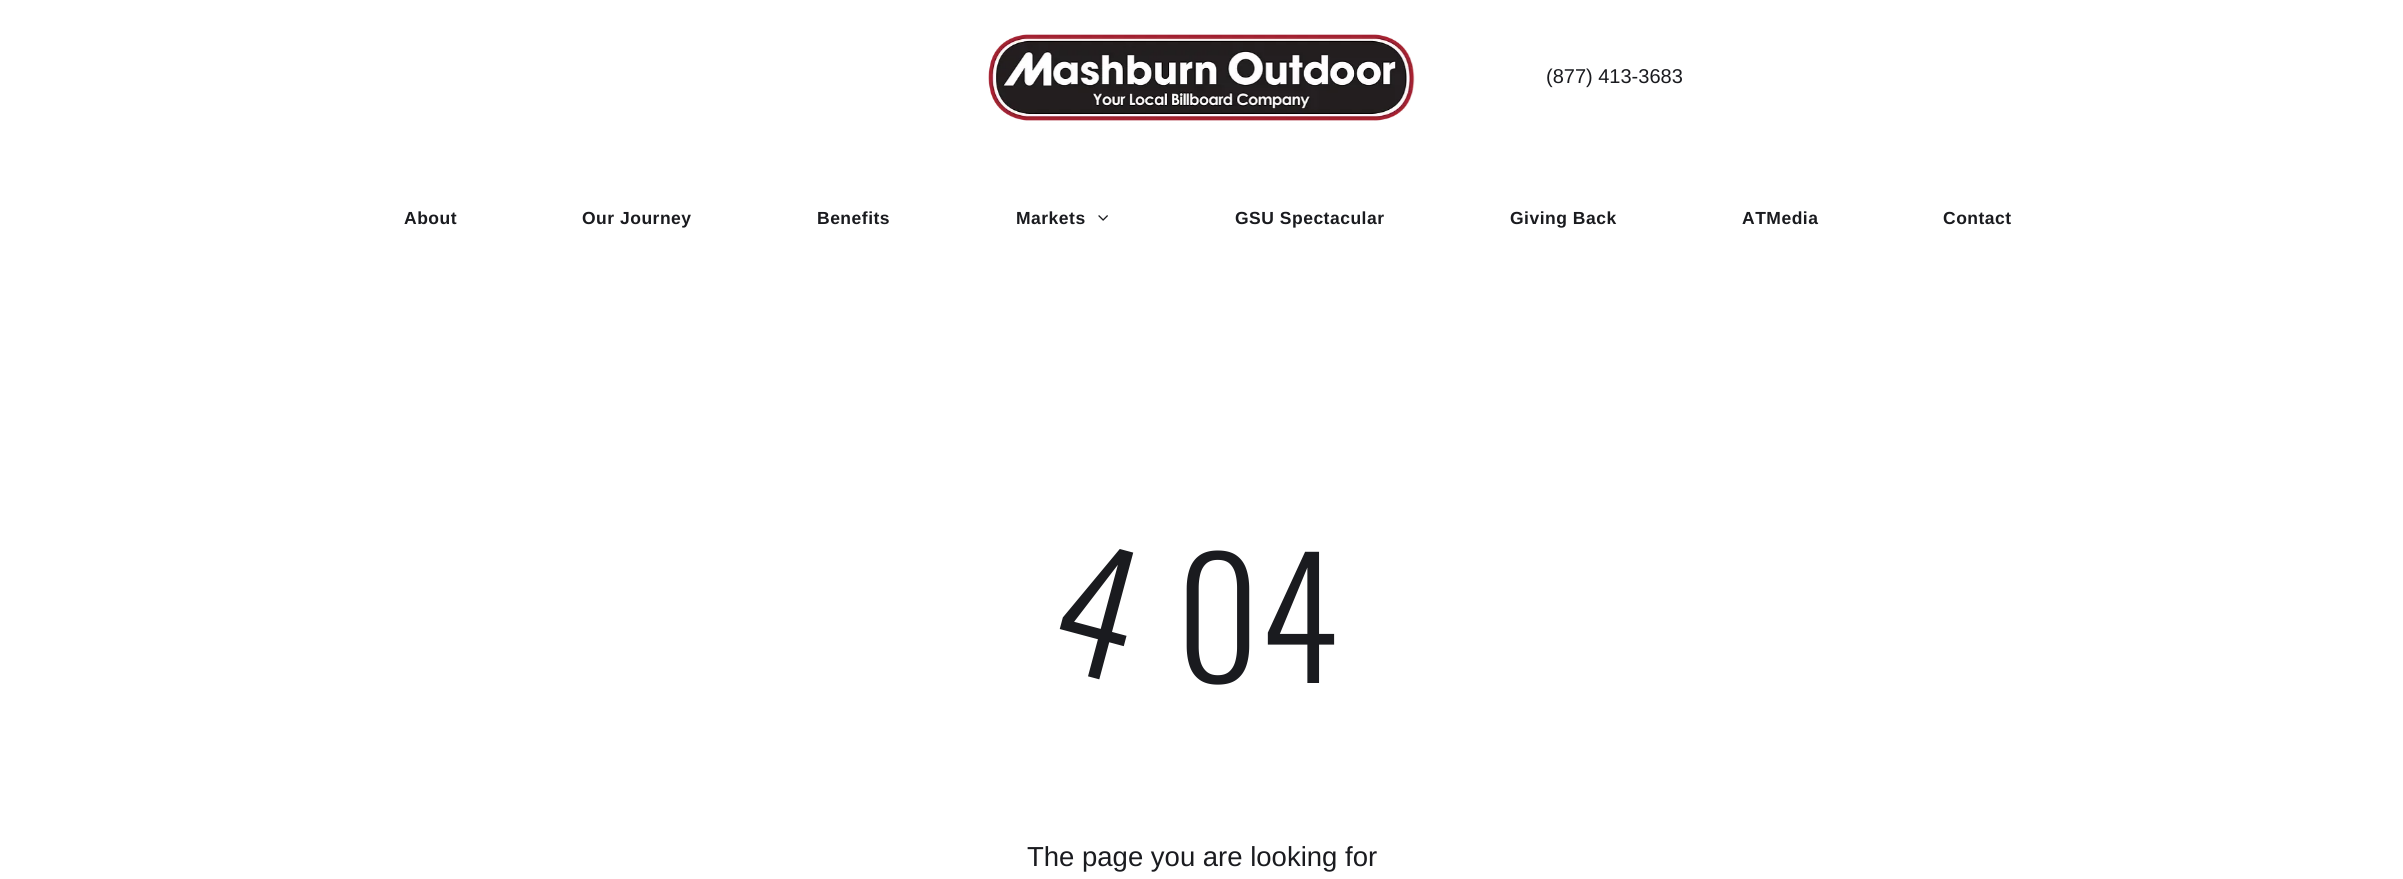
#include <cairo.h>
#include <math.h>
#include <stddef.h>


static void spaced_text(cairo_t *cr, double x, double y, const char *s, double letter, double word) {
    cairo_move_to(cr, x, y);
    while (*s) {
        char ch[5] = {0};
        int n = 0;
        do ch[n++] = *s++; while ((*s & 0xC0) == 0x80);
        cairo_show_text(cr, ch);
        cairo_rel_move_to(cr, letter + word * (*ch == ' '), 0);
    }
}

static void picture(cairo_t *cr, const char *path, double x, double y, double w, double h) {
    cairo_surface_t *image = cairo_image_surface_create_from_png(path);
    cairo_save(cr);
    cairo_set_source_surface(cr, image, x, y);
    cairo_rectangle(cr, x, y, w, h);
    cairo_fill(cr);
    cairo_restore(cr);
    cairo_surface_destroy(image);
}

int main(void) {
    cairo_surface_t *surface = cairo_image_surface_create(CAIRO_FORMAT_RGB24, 2403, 879);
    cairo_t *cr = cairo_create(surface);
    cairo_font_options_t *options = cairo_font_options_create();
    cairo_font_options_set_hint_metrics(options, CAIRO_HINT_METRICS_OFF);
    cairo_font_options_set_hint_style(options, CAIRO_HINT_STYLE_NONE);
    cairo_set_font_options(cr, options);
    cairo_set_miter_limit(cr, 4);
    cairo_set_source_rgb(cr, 1, 1, 1);
    cairo_paint(cr);
    picture(cr, "img1.png", 988, 34, 427, 87);
    cairo_select_font_face(cr, "Liberation Sans", CAIRO_FONT_SLANT_NORMAL, CAIRO_FONT_WEIGHT_NORMAL);
    cairo_set_font_size(cr, 20);
    cairo_set_source_rgb(cr, 0.102, 0.106, 0.122);
    cairo_move_to(cr, 1546, 83);
    cairo_show_text(cr, "(877) 413-3683");
    cairo_select_font_face(cr, "Liberation Sans", CAIRO_FONT_SLANT_NORMAL, CAIRO_FONT_WEIGHT_BOLD);
    cairo_set_font_size(cr, 17.5);
    spaced_text(cr, 404, 224, "About", 0.5, 0);
    spaced_text(cr, 582, 224, "Our Journey", 0.5, 0);
    spaced_text(cr, 817, 224, "Benefits", 0.5, 0);
    spaced_text(cr, 1016, 224, "Markets", 0.5, 0);
    picture(cr, "img2.png", 1098, 215, 10, 6);
    spaced_text(cr, 1235, 224, "GSU Spectacular", 0.5, 0);
    spaced_text(cr, 1510, 224, "Giving Back", 0.5, 0);
    spaced_text(cr, 1742, 224, "ATMedia", 0.5, 0);
    spaced_text(cr, 1943, 224, "Contact", 0.5, 0);
    cairo_select_font_face(cr, "Oswald Light", CAIRO_FONT_SLANT_NORMAL, CAIRO_FONT_WEIGHT_NORMAL);
    cairo_set_font_size(cr, 162);
    cairo_save(cr);
    cairo_translate(cr, 1042, 664);
    cairo_rotate(cr, 15 * M_PI / 180);
    cairo_move_to(cr, 0, 0);
    cairo_show_text(cr, "4");
    cairo_restore(cr);
    cairo_move_to(cr, 1176, 683);
    cairo_show_text(cr, "04");
    cairo_select_font_face(cr, "Liberation Sans", CAIRO_FONT_SLANT_NORMAL, CAIRO_FONT_WEIGHT_NORMAL);
    cairo_set_font_size(cr, 27.5);
    cairo_move_to(cr, 1027, 866);
    cairo_show_text(cr, "The page you are looking for");
    cairo_surface_write_to_png(surface, "page.png");
    cairo_font_options_destroy(options);
    cairo_destroy(cr);
    cairo_surface_destroy(surface);
    return 0;
}
